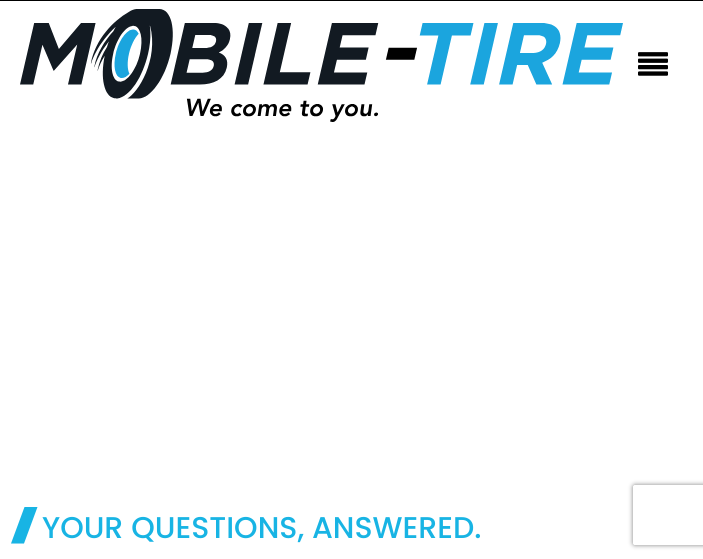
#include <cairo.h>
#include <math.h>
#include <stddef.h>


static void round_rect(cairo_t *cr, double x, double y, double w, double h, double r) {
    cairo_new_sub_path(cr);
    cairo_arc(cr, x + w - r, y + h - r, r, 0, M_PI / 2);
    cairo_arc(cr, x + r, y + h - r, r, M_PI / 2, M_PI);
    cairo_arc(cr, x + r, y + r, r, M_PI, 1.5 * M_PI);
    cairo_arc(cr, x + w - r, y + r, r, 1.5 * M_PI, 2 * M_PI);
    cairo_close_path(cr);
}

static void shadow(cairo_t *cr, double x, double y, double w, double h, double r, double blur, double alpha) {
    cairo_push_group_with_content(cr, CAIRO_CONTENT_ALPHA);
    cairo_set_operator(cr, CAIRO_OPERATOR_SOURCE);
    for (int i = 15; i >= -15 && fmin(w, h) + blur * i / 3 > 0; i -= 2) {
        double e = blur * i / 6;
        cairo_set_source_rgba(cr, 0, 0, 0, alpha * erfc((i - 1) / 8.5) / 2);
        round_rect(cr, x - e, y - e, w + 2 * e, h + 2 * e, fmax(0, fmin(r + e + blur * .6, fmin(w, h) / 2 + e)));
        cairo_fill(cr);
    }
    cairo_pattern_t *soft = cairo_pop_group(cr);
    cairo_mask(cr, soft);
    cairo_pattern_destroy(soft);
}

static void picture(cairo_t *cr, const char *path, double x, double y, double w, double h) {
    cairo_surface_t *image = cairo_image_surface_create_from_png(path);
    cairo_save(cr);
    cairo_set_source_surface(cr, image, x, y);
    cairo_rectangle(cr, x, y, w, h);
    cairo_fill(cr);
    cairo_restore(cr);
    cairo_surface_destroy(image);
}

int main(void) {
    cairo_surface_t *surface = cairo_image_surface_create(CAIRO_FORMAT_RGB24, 703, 559);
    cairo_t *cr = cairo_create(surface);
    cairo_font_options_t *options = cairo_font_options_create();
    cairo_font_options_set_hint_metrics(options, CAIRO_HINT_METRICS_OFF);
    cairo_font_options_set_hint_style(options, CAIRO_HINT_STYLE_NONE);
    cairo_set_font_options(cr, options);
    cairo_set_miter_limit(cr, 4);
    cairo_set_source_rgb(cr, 1, 1, 1);
    cairo_paint(cr);
    cairo_set_source_rgb(cr, 0, 0, 0);
    cairo_rectangle(cr, 0, 0, 703, 1);
    cairo_fill(cr);
    picture(cr, "img1.png", 20, 9, 603, 113);
    picture(cr, "img2.png", 638, 52, 30, 24);
    cairo_set_source_rgb(cr, 0.094, 0.706, 0.894);
    cairo_new_path(cr);
    cairo_move_to(cr, 24.5, 507);
    cairo_line_to(cr, 37.5, 507);
    cairo_line_to(cr, 24, 543.5);
    cairo_line_to(cr, 11, 543.5);
    cairo_close_path(cr);
    cairo_fill(cr);
    cairo_select_font_face(cr, "Poppins Medium", CAIRO_FONT_SLANT_NORMAL, CAIRO_FONT_WEIGHT_NORMAL);
    cairo_set_font_size(cr, 30);
    cairo_move_to(cr, 42, 538);
    cairo_show_text(cr, "YOUR QUESTIONS, ANSWERED.");
    cairo_save(cr);
    cairo_set_fill_rule(cr, CAIRO_FILL_RULE_EVEN_ODD);
    cairo_new_path(cr);
    cairo_move_to(cr, 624, 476);
    cairo_line_to(cr, 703, 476);
    cairo_line_to(cr, 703, 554);
    cairo_line_to(cr, 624, 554);
    cairo_close_path(cr);
    cairo_move_to(cr, 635, 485);
    cairo_line_to(cr, 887, 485);
    cairo_curve_to(cr, 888, 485, 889, 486, 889, 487);
    cairo_line_to(cr, 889, 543);
    cairo_curve_to(cr, 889, 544, 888, 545, 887, 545);
    cairo_line_to(cr, 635, 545);
    cairo_curve_to(cr, 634, 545, 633, 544, 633, 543);
    cairo_line_to(cr, 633, 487);
    cairo_curve_to(cr, 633, 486, 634, 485, 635, 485);
    cairo_close_path(cr);
    cairo_clip(cr);
    cairo_set_source_rgb(cr, 0.502, 0.502, 0.502);
    shadow(cr, 633, 485, 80, 60, 2, 2.5, 1);
    cairo_restore(cr);
    cairo_surface_write_to_png(surface, "page.png");
    cairo_font_options_destroy(options);
    cairo_destroy(cr);
    cairo_surface_destroy(surface);
    return 0;
}
